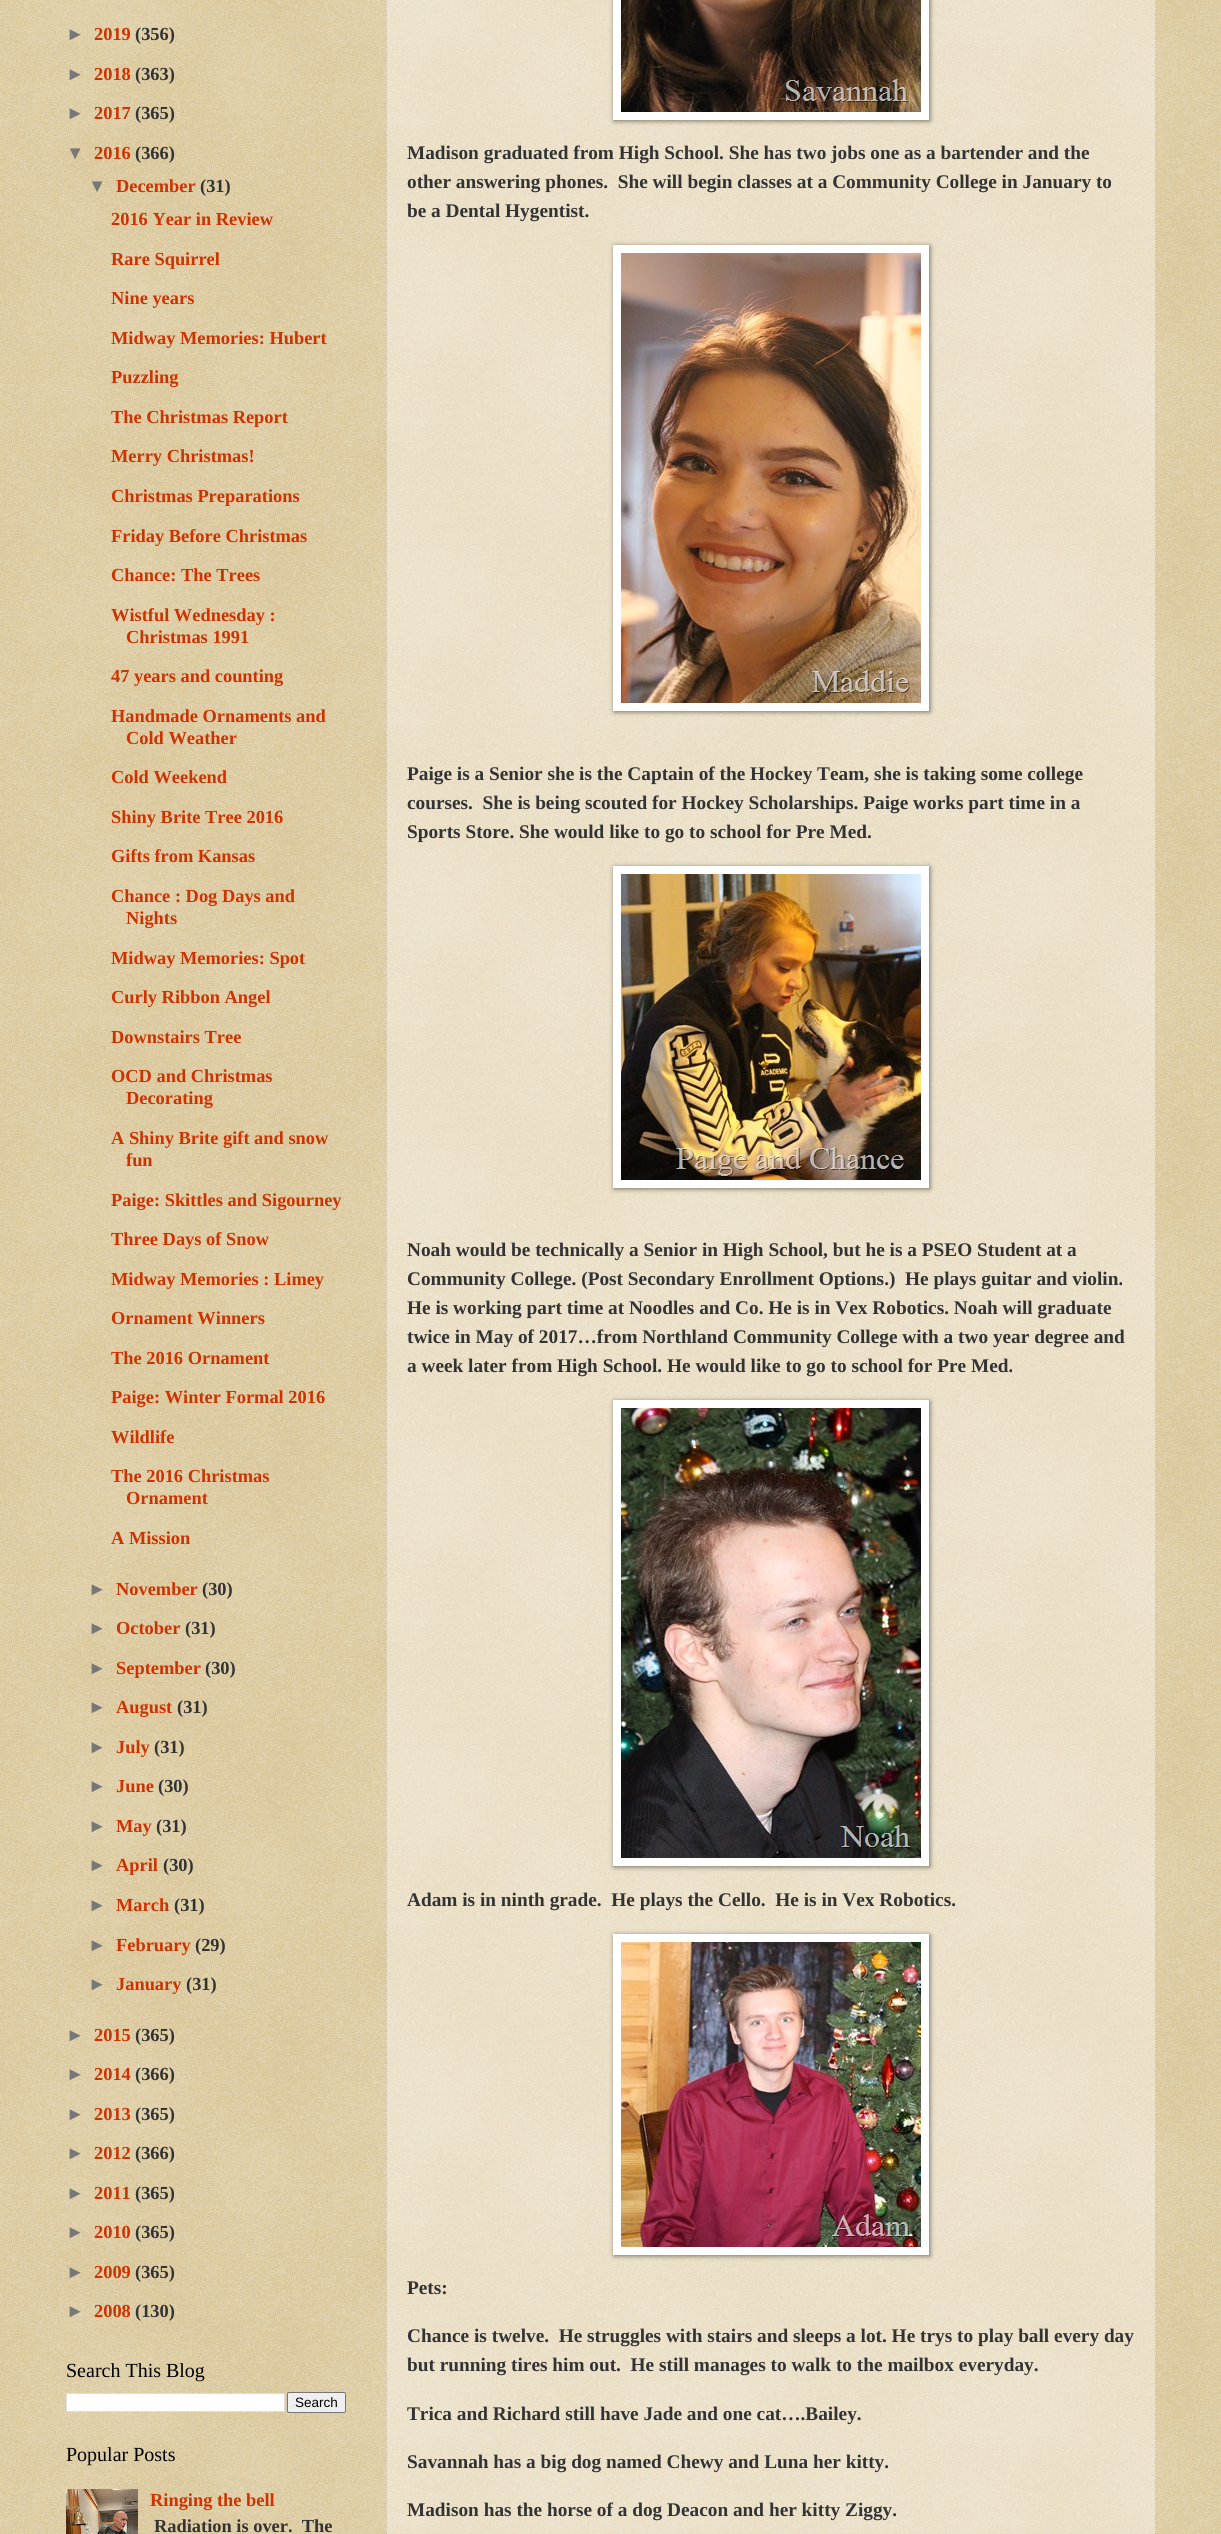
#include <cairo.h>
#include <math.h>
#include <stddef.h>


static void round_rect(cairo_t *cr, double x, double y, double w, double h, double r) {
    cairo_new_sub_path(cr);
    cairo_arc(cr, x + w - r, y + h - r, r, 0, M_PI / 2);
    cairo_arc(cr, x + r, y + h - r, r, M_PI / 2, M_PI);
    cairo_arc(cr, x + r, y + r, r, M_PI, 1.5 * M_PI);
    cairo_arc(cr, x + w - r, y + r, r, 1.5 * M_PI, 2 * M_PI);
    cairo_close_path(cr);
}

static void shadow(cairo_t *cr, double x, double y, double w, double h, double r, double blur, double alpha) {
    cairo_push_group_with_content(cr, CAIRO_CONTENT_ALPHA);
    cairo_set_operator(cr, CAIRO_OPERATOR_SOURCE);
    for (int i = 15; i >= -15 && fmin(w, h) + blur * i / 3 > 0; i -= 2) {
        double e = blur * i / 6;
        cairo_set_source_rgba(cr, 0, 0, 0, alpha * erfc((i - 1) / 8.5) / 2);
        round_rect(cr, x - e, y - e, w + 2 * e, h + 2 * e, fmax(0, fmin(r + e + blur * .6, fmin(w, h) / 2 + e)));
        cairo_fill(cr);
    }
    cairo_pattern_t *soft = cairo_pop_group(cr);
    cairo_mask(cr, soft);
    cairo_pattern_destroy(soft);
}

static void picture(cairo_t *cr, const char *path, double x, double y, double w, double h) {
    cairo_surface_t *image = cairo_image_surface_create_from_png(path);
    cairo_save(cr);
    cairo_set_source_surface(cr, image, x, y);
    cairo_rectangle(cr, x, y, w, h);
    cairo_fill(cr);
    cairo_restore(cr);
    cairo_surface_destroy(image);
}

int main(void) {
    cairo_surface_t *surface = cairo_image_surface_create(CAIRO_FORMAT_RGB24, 1221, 2534);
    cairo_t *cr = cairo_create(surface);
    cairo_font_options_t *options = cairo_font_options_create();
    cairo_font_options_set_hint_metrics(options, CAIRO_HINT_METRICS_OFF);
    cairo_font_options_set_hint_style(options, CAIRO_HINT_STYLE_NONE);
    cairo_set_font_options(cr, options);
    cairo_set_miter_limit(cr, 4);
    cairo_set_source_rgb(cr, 0.753, 0.631, 0.329);
    cairo_paint(cr);
    picture(cr, "img1.png", 0, 0, 1221, 2534);
    cairo_select_font_face(cr, "Liberation Sans", CAIRO_FONT_SLANT_NORMAL, CAIRO_FONT_WEIGHT_BOLD);
    cairo_set_font_size(cr, 18.4);
    cairo_set_source_rgb(cr, 0.467, 0.467, 0.467);
    cairo_move_to(cr, 66, 40);
    cairo_show_text(cr, "►");
    cairo_select_font_face(cr, "Liberation Serif", CAIRO_FONT_SLANT_NORMAL, CAIRO_FONT_WEIGHT_BOLD);
    cairo_set_source_rgb(cr, 0.8, 0.2, 0);
    cairo_move_to(cr, 94, 40);
    cairo_show_text(cr, "2019");
    cairo_set_source_rgb(cr, 0.2, 0.2, 0.2);
    cairo_move_to(cr, 135, 40);
    cairo_show_text(cr, "(356)");
    cairo_select_font_face(cr, "Liberation Sans", CAIRO_FONT_SLANT_NORMAL, CAIRO_FONT_WEIGHT_BOLD);
    cairo_set_source_rgb(cr, 0.467, 0.467, 0.467);
    cairo_move_to(cr, 66, 80);
    cairo_show_text(cr, "►");
    cairo_select_font_face(cr, "Liberation Serif", CAIRO_FONT_SLANT_NORMAL, CAIRO_FONT_WEIGHT_BOLD);
    cairo_set_source_rgb(cr, 0.8, 0.2, 0);
    cairo_move_to(cr, 94, 80);
    cairo_show_text(cr, "2018");
    cairo_set_source_rgb(cr, 0.2, 0.2, 0.2);
    cairo_move_to(cr, 135, 80);
    cairo_show_text(cr, "(363)");
    cairo_select_font_face(cr, "Liberation Sans", CAIRO_FONT_SLANT_NORMAL, CAIRO_FONT_WEIGHT_BOLD);
    cairo_set_source_rgb(cr, 0.467, 0.467, 0.467);
    cairo_move_to(cr, 66, 119);
    cairo_show_text(cr, "►");
    cairo_select_font_face(cr, "Liberation Serif", CAIRO_FONT_SLANT_NORMAL, CAIRO_FONT_WEIGHT_BOLD);
    cairo_set_source_rgb(cr, 0.8, 0.2, 0);
    cairo_move_to(cr, 94, 119);
    cairo_show_text(cr, "2017");
    cairo_set_source_rgb(cr, 0.2, 0.2, 0.2);
    cairo_move_to(cr, 135, 119);
    cairo_show_text(cr, "(365)");
    cairo_select_font_face(cr, "Liberation Sans", CAIRO_FONT_SLANT_NORMAL, CAIRO_FONT_WEIGHT_BOLD);
    cairo_set_source_rgb(cr, 0.467, 0.467, 0.467);
    cairo_move_to(cr, 66, 159);
    cairo_show_text(cr, "▼");
    cairo_select_font_face(cr, "Liberation Serif", CAIRO_FONT_SLANT_NORMAL, CAIRO_FONT_WEIGHT_BOLD);
    cairo_set_source_rgb(cr, 0.8, 0.2, 0);
    cairo_move_to(cr, 94, 159);
    cairo_show_text(cr, "2016");
    cairo_set_source_rgb(cr, 0.2, 0.2, 0.2);
    cairo_move_to(cr, 135, 159);
    cairo_show_text(cr, "(366)");
    cairo_select_font_face(cr, "Liberation Sans", CAIRO_FONT_SLANT_NORMAL, CAIRO_FONT_WEIGHT_BOLD);
    cairo_set_source_rgb(cr, 0.467, 0.467, 0.467);
    cairo_move_to(cr, 88, 192);
    cairo_show_text(cr, "▼");
    cairo_select_font_face(cr, "Liberation Serif", CAIRO_FONT_SLANT_NORMAL, CAIRO_FONT_WEIGHT_BOLD);
    cairo_set_source_rgb(cr, 0.8, 0.2, 0);
    cairo_move_to(cr, 116, 192);
    cairo_show_text(cr, "December");
    cairo_set_source_rgb(cr, 0.2, 0.2, 0.2);
    cairo_move_to(cr, 200, 192);
    cairo_show_text(cr, "(31)");
    cairo_set_source_rgb(cr, 0.8, 0.2, 0);
    cairo_move_to(cr, 111, 225);
    cairo_show_text(cr, "2016 Year in Review");
    cairo_move_to(cr, 111, 265);
    cairo_show_text(cr, "Rare Squirrel");
    cairo_move_to(cr, 111, 304);
    cairo_show_text(cr, "Nine years");
    cairo_move_to(cr, 111, 344);
    cairo_show_text(cr, "Midway Memories: Hubert");
    cairo_move_to(cr, 111, 383);
    cairo_show_text(cr, "Puzzling");
    cairo_move_to(cr, 111, 423);
    cairo_show_text(cr, "The Christmas Report");
    cairo_move_to(cr, 111, 462);
    cairo_show_text(cr, "Merry Christmas!");
    cairo_move_to(cr, 111, 502);
    cairo_show_text(cr, "Christmas Preparations");
    cairo_move_to(cr, 111, 542);
    cairo_show_text(cr, "Friday Before Christmas");
    cairo_move_to(cr, 111, 581);
    cairo_show_text(cr, "Chance: The Trees");
    cairo_move_to(cr, 111, 621);
    cairo_show_text(cr, "Wistful Wednesday :");
    cairo_move_to(cr, 126, 643);
    cairo_show_text(cr, "Christmas 1991");
    cairo_move_to(cr, 111, 682);
    cairo_show_text(cr, "47 years and counting");
    cairo_move_to(cr, 111, 722);
    cairo_show_text(cr, "Handmade Ornaments and");
    cairo_move_to(cr, 126, 744);
    cairo_show_text(cr, "Cold Weather");
    cairo_move_to(cr, 111, 783);
    cairo_show_text(cr, "Cold Weekend");
    cairo_move_to(cr, 111, 823);
    cairo_show_text(cr, "Shiny Brite Tree 2016");
    cairo_move_to(cr, 111, 862);
    cairo_show_text(cr, "Gifts from Kansas");
    cairo_move_to(cr, 111, 902);
    cairo_show_text(cr, "Chance : Dog Days and");
    cairo_move_to(cr, 126, 924);
    cairo_show_text(cr, "Nights");
    cairo_move_to(cr, 111, 964);
    cairo_show_text(cr, "Midway Memories: Spot");
    cairo_move_to(cr, 111, 1003);
    cairo_show_text(cr, "Curly Ribbon Angel");
    cairo_move_to(cr, 111, 1043);
    cairo_show_text(cr, "Downstairs Tree");
    cairo_move_to(cr, 111, 1082);
    cairo_show_text(cr, "OCD and Christmas");
    cairo_move_to(cr, 126, 1104);
    cairo_show_text(cr, "Decorating");
    cairo_move_to(cr, 111, 1144);
    cairo_show_text(cr, "A Shiny Brite gift and snow");
    cairo_move_to(cr, 126, 1166);
    cairo_show_text(cr, "fun");
    cairo_move_to(cr, 111, 1206);
    cairo_show_text(cr, "Paige: Skittles and Sigourney");
    cairo_move_to(cr, 111, 1245);
    cairo_show_text(cr, "Three Days of Snow");
    cairo_move_to(cr, 111, 1285);
    cairo_show_text(cr, "Midway Memories : Limey");
    cairo_move_to(cr, 111, 1324);
    cairo_show_text(cr, "Ornament Winners");
    cairo_move_to(cr, 111, 1364);
    cairo_show_text(cr, "The 2016 Ornament");
    cairo_move_to(cr, 111, 1403);
    cairo_show_text(cr, "Paige: Winter Formal 2016");
    cairo_move_to(cr, 111, 1443);
    cairo_show_text(cr, "Wildlife");
    cairo_move_to(cr, 111, 1482);
    cairo_show_text(cr, "The 2016 Christmas");
    cairo_move_to(cr, 126, 1504);
    cairo_show_text(cr, "Ornament");
    cairo_move_to(cr, 111, 1544);
    cairo_show_text(cr, "A Mission");
    cairo_select_font_face(cr, "Liberation Sans", CAIRO_FONT_SLANT_NORMAL, CAIRO_FONT_WEIGHT_BOLD);
    cairo_set_source_rgb(cr, 0.467, 0.467, 0.467);
    cairo_move_to(cr, 88, 1595);
    cairo_show_text(cr, "►");
    cairo_select_font_face(cr, "Liberation Serif", CAIRO_FONT_SLANT_NORMAL, CAIRO_FONT_WEIGHT_BOLD);
    cairo_set_source_rgb(cr, 0.8, 0.2, 0);
    cairo_move_to(cr, 116, 1595);
    cairo_show_text(cr, "November");
    cairo_set_source_rgb(cr, 0.2, 0.2, 0.2);
    cairo_move_to(cr, 202, 1595);
    cairo_show_text(cr, "(30)");
    cairo_select_font_face(cr, "Liberation Sans", CAIRO_FONT_SLANT_NORMAL, CAIRO_FONT_WEIGHT_BOLD);
    cairo_set_source_rgb(cr, 0.467, 0.467, 0.467);
    cairo_move_to(cr, 88, 1634);
    cairo_show_text(cr, "►");
    cairo_select_font_face(cr, "Liberation Serif", CAIRO_FONT_SLANT_NORMAL, CAIRO_FONT_WEIGHT_BOLD);
    cairo_set_source_rgb(cr, 0.8, 0.2, 0);
    cairo_move_to(cr, 116, 1634);
    cairo_show_text(cr, "October");
    cairo_set_source_rgb(cr, 0.2, 0.2, 0.2);
    cairo_move_to(cr, 185, 1634);
    cairo_show_text(cr, "(31)");
    cairo_select_font_face(cr, "Liberation Sans", CAIRO_FONT_SLANT_NORMAL, CAIRO_FONT_WEIGHT_BOLD);
    cairo_set_source_rgb(cr, 0.467, 0.467, 0.467);
    cairo_move_to(cr, 88, 1674);
    cairo_show_text(cr, "►");
    cairo_select_font_face(cr, "Liberation Serif", CAIRO_FONT_SLANT_NORMAL, CAIRO_FONT_WEIGHT_BOLD);
    cairo_set_source_rgb(cr, 0.8, 0.2, 0);
    cairo_move_to(cr, 116, 1674);
    cairo_show_text(cr, "September");
    cairo_set_source_rgb(cr, 0.2, 0.2, 0.2);
    cairo_move_to(cr, 205, 1674);
    cairo_show_text(cr, "(30)");
    cairo_select_font_face(cr, "Liberation Sans", CAIRO_FONT_SLANT_NORMAL, CAIRO_FONT_WEIGHT_BOLD);
    cairo_set_source_rgb(cr, 0.467, 0.467, 0.467);
    cairo_move_to(cr, 88, 1713);
    cairo_show_text(cr, "►");
    cairo_select_font_face(cr, "Liberation Serif", CAIRO_FONT_SLANT_NORMAL, CAIRO_FONT_WEIGHT_BOLD);
    cairo_set_source_rgb(cr, 0.8, 0.2, 0);
    cairo_move_to(cr, 116, 1713);
    cairo_show_text(cr, "August");
    cairo_set_source_rgb(cr, 0.2, 0.2, 0.2);
    cairo_move_to(cr, 177, 1713);
    cairo_show_text(cr, "(31)");
    cairo_select_font_face(cr, "Liberation Sans", CAIRO_FONT_SLANT_NORMAL, CAIRO_FONT_WEIGHT_BOLD);
    cairo_set_source_rgb(cr, 0.467, 0.467, 0.467);
    cairo_move_to(cr, 88, 1753);
    cairo_show_text(cr, "►");
    cairo_select_font_face(cr, "Liberation Serif", CAIRO_FONT_SLANT_NORMAL, CAIRO_FONT_WEIGHT_BOLD);
    cairo_set_source_rgb(cr, 0.8, 0.2, 0);
    cairo_move_to(cr, 116, 1753);
    cairo_show_text(cr, "July");
    cairo_set_source_rgb(cr, 0.2, 0.2, 0.2);
    cairo_move_to(cr, 154, 1753);
    cairo_show_text(cr, "(31)");
    cairo_select_font_face(cr, "Liberation Sans", CAIRO_FONT_SLANT_NORMAL, CAIRO_FONT_WEIGHT_BOLD);
    cairo_set_source_rgb(cr, 0.467, 0.467, 0.467);
    cairo_move_to(cr, 88, 1792);
    cairo_show_text(cr, "►");
    cairo_select_font_face(cr, "Liberation Serif", CAIRO_FONT_SLANT_NORMAL, CAIRO_FONT_WEIGHT_BOLD);
    cairo_set_source_rgb(cr, 0.8, 0.2, 0);
    cairo_move_to(cr, 116, 1792);
    cairo_show_text(cr, "June");
    cairo_set_source_rgb(cr, 0.2, 0.2, 0.2);
    cairo_move_to(cr, 158, 1792);
    cairo_show_text(cr, "(30)");
    cairo_select_font_face(cr, "Liberation Sans", CAIRO_FONT_SLANT_NORMAL, CAIRO_FONT_WEIGHT_BOLD);
    cairo_set_source_rgb(cr, 0.467, 0.467, 0.467);
    cairo_move_to(cr, 88, 1832);
    cairo_show_text(cr, "►");
    cairo_select_font_face(cr, "Liberation Serif", CAIRO_FONT_SLANT_NORMAL, CAIRO_FONT_WEIGHT_BOLD);
    cairo_set_source_rgb(cr, 0.8, 0.2, 0);
    cairo_move_to(cr, 116, 1832);
    cairo_show_text(cr, "May");
    cairo_set_source_rgb(cr, 0.2, 0.2, 0.2);
    cairo_move_to(cr, 156, 1832);
    cairo_show_text(cr, "(31)");
    cairo_select_font_face(cr, "Liberation Sans", CAIRO_FONT_SLANT_NORMAL, CAIRO_FONT_WEIGHT_BOLD);
    cairo_set_source_rgb(cr, 0.467, 0.467, 0.467);
    cairo_move_to(cr, 88, 1871);
    cairo_show_text(cr, "►");
    cairo_select_font_face(cr, "Liberation Serif", CAIRO_FONT_SLANT_NORMAL, CAIRO_FONT_WEIGHT_BOLD);
    cairo_set_source_rgb(cr, 0.8, 0.2, 0);
    cairo_move_to(cr, 116, 1871);
    cairo_show_text(cr, "April");
    cairo_set_source_rgb(cr, 0.2, 0.2, 0.2);
    cairo_move_to(cr, 163, 1871);
    cairo_show_text(cr, "(30)");
    cairo_select_font_face(cr, "Liberation Sans", CAIRO_FONT_SLANT_NORMAL, CAIRO_FONT_WEIGHT_BOLD);
    cairo_set_source_rgb(cr, 0.467, 0.467, 0.467);
    cairo_move_to(cr, 88, 1911);
    cairo_show_text(cr, "►");
    cairo_select_font_face(cr, "Liberation Serif", CAIRO_FONT_SLANT_NORMAL, CAIRO_FONT_WEIGHT_BOLD);
    cairo_set_source_rgb(cr, 0.8, 0.2, 0);
    cairo_move_to(cr, 116, 1911);
    cairo_show_text(cr, "March");
    cairo_set_source_rgb(cr, 0.2, 0.2, 0.2);
    cairo_move_to(cr, 174, 1911);
    cairo_show_text(cr, "(31)");
    cairo_select_font_face(cr, "Liberation Sans", CAIRO_FONT_SLANT_NORMAL, CAIRO_FONT_WEIGHT_BOLD);
    cairo_set_source_rgb(cr, 0.467, 0.467, 0.467);
    cairo_move_to(cr, 88, 1951);
    cairo_show_text(cr, "►");
    cairo_select_font_face(cr, "Liberation Serif", CAIRO_FONT_SLANT_NORMAL, CAIRO_FONT_WEIGHT_BOLD);
    cairo_set_source_rgb(cr, 0.8, 0.2, 0);
    cairo_move_to(cr, 116, 1951);
    cairo_show_text(cr, "February");
    cairo_set_source_rgb(cr, 0.2, 0.2, 0.2);
    cairo_move_to(cr, 195, 1951);
    cairo_show_text(cr, "(29)");
    cairo_select_font_face(cr, "Liberation Sans", CAIRO_FONT_SLANT_NORMAL, CAIRO_FONT_WEIGHT_BOLD);
    cairo_set_source_rgb(cr, 0.467, 0.467, 0.467);
    cairo_move_to(cr, 88, 1990);
    cairo_show_text(cr, "►");
    cairo_select_font_face(cr, "Liberation Serif", CAIRO_FONT_SLANT_NORMAL, CAIRO_FONT_WEIGHT_BOLD);
    cairo_set_source_rgb(cr, 0.8, 0.2, 0);
    cairo_move_to(cr, 116, 1990);
    cairo_show_text(cr, "January");
    cairo_set_source_rgb(cr, 0.2, 0.2, 0.2);
    cairo_move_to(cr, 186, 1990);
    cairo_show_text(cr, "(31)");
    cairo_select_font_face(cr, "Liberation Sans", CAIRO_FONT_SLANT_NORMAL, CAIRO_FONT_WEIGHT_BOLD);
    cairo_set_source_rgb(cr, 0.467, 0.467, 0.467);
    cairo_move_to(cr, 66, 2041);
    cairo_show_text(cr, "►");
    cairo_select_font_face(cr, "Liberation Serif", CAIRO_FONT_SLANT_NORMAL, CAIRO_FONT_WEIGHT_BOLD);
    cairo_set_source_rgb(cr, 0.8, 0.2, 0);
    cairo_move_to(cr, 94, 2041);
    cairo_show_text(cr, "2015");
    cairo_set_source_rgb(cr, 0.2, 0.2, 0.2);
    cairo_move_to(cr, 135, 2041);
    cairo_show_text(cr, "(365)");
    cairo_select_font_face(cr, "Liberation Sans", CAIRO_FONT_SLANT_NORMAL, CAIRO_FONT_WEIGHT_BOLD);
    cairo_set_source_rgb(cr, 0.467, 0.467, 0.467);
    cairo_move_to(cr, 66, 2080);
    cairo_show_text(cr, "►");
    cairo_select_font_face(cr, "Liberation Serif", CAIRO_FONT_SLANT_NORMAL, CAIRO_FONT_WEIGHT_BOLD);
    cairo_set_source_rgb(cr, 0.8, 0.2, 0);
    cairo_move_to(cr, 94, 2080);
    cairo_show_text(cr, "2014");
    cairo_set_source_rgb(cr, 0.2, 0.2, 0.2);
    cairo_move_to(cr, 135, 2080);
    cairo_show_text(cr, "(366)");
    cairo_select_font_face(cr, "Liberation Sans", CAIRO_FONT_SLANT_NORMAL, CAIRO_FONT_WEIGHT_BOLD);
    cairo_set_source_rgb(cr, 0.467, 0.467, 0.467);
    cairo_move_to(cr, 66, 2120);
    cairo_show_text(cr, "►");
    cairo_select_font_face(cr, "Liberation Serif", CAIRO_FONT_SLANT_NORMAL, CAIRO_FONT_WEIGHT_BOLD);
    cairo_set_source_rgb(cr, 0.8, 0.2, 0);
    cairo_move_to(cr, 94, 2120);
    cairo_show_text(cr, "2013");
    cairo_set_source_rgb(cr, 0.2, 0.2, 0.2);
    cairo_move_to(cr, 135, 2120);
    cairo_show_text(cr, "(365)");
    cairo_select_font_face(cr, "Liberation Sans", CAIRO_FONT_SLANT_NORMAL, CAIRO_FONT_WEIGHT_BOLD);
    cairo_set_source_rgb(cr, 0.467, 0.467, 0.467);
    cairo_move_to(cr, 66, 2159);
    cairo_show_text(cr, "►");
    cairo_select_font_face(cr, "Liberation Serif", CAIRO_FONT_SLANT_NORMAL, CAIRO_FONT_WEIGHT_BOLD);
    cairo_set_source_rgb(cr, 0.8, 0.2, 0);
    cairo_move_to(cr, 94, 2159);
    cairo_show_text(cr, "2012");
    cairo_set_source_rgb(cr, 0.2, 0.2, 0.2);
    cairo_move_to(cr, 135, 2159);
    cairo_show_text(cr, "(366)");
    cairo_select_font_face(cr, "Liberation Sans", CAIRO_FONT_SLANT_NORMAL, CAIRO_FONT_WEIGHT_BOLD);
    cairo_set_source_rgb(cr, 0.467, 0.467, 0.467);
    cairo_move_to(cr, 66, 2199);
    cairo_show_text(cr, "►");
    cairo_select_font_face(cr, "Liberation Serif", CAIRO_FONT_SLANT_NORMAL, CAIRO_FONT_WEIGHT_BOLD);
    cairo_set_source_rgb(cr, 0.8, 0.2, 0);
    cairo_move_to(cr, 94, 2199);
    cairo_show_text(cr, "2011");
    cairo_set_source_rgb(cr, 0.2, 0.2, 0.2);
    cairo_move_to(cr, 135, 2199);
    cairo_show_text(cr, "(365)");
    cairo_select_font_face(cr, "Liberation Sans", CAIRO_FONT_SLANT_NORMAL, CAIRO_FONT_WEIGHT_BOLD);
    cairo_set_source_rgb(cr, 0.467, 0.467, 0.467);
    cairo_move_to(cr, 66, 2238);
    cairo_show_text(cr, "►");
    cairo_select_font_face(cr, "Liberation Serif", CAIRO_FONT_SLANT_NORMAL, CAIRO_FONT_WEIGHT_BOLD);
    cairo_set_source_rgb(cr, 0.8, 0.2, 0);
    cairo_move_to(cr, 94, 2238);
    cairo_show_text(cr, "2010");
    cairo_set_source_rgb(cr, 0.2, 0.2, 0.2);
    cairo_move_to(cr, 135, 2238);
    cairo_show_text(cr, "(365)");
    cairo_select_font_face(cr, "Liberation Sans", CAIRO_FONT_SLANT_NORMAL, CAIRO_FONT_WEIGHT_BOLD);
    cairo_set_source_rgb(cr, 0.467, 0.467, 0.467);
    cairo_move_to(cr, 66, 2278);
    cairo_show_text(cr, "►");
    cairo_select_font_face(cr, "Liberation Serif", CAIRO_FONT_SLANT_NORMAL, CAIRO_FONT_WEIGHT_BOLD);
    cairo_set_source_rgb(cr, 0.8, 0.2, 0);
    cairo_move_to(cr, 94, 2278);
    cairo_show_text(cr, "2009");
    cairo_set_source_rgb(cr, 0.2, 0.2, 0.2);
    cairo_move_to(cr, 135, 2278);
    cairo_show_text(cr, "(365)");
    cairo_select_font_face(cr, "Liberation Sans", CAIRO_FONT_SLANT_NORMAL, CAIRO_FONT_WEIGHT_BOLD);
    cairo_set_source_rgb(cr, 0.467, 0.467, 0.467);
    cairo_move_to(cr, 66, 2317);
    cairo_show_text(cr, "►");
    cairo_select_font_face(cr, "Liberation Serif", CAIRO_FONT_SLANT_NORMAL, CAIRO_FONT_WEIGHT_BOLD);
    cairo_set_source_rgb(cr, 0.8, 0.2, 0);
    cairo_move_to(cr, 94, 2317);
    cairo_show_text(cr, "2008");
    cairo_set_source_rgb(cr, 0.2, 0.2, 0.2);
    cairo_move_to(cr, 135, 2317);
    cairo_show_text(cr, "(130)");
    cairo_select_font_face(cr, "Liberation Serif", CAIRO_FONT_SLANT_NORMAL, CAIRO_FONT_WEIGHT_NORMAL);
    cairo_set_font_size(cr, 20);
    cairo_set_source_rgb(cr, 0, 0, 0);
    cairo_move_to(cr, 66, 2377);
    cairo_show_text(cr, "Search This Blog");
    cairo_set_source_rgb(cr, 1, 1, 1);
    cairo_rectangle(cr, 66.5, 2393.5, 218, 18);
    cairo_fill_preserve(cr);
    cairo_set_source_rgb(cr, 0.867, 0.867, 0.867);
    cairo_set_line_width(cr, 1);
    cairo_stroke(cr);
    cairo_set_source_rgb(cr, 0.937, 0.937, 0.937);
    round_rect(cr, 287.5, 2392.5, 58, 20, 1.5);
    cairo_fill_preserve(cr);
    cairo_set_source_rgb(cr, 0.463, 0.463, 0.463);
    cairo_stroke(cr);
    cairo_select_font_face(cr, "Liberation Sans", CAIRO_FONT_SLANT_NORMAL, CAIRO_FONT_WEIGHT_NORMAL);
    cairo_set_font_size(cr, 13.5);
    cairo_set_source_rgb(cr, 0, 0, 0);
    cairo_move_to(cr, 295, 2407);
    cairo_show_text(cr, "Search");
    cairo_select_font_face(cr, "Liberation Serif", CAIRO_FONT_SLANT_NORMAL, CAIRO_FONT_WEIGHT_NORMAL);
    cairo_set_font_size(cr, 20);
    cairo_move_to(cr, 66, 2461);
    cairo_show_text(cr, "Popular Posts");
    picture(cr, "img2.png", 66, 2489, 72, 45);
    cairo_select_font_face(cr, "Liberation Serif", CAIRO_FONT_SLANT_NORMAL, CAIRO_FONT_WEIGHT_BOLD);
    cairo_set_font_size(cr, 18.4);
    cairo_set_source_rgb(cr, 0.8, 0.2, 0);
    cairo_move_to(cr, 150, 2506);
    cairo_show_text(cr, "Ringing the bell");
    cairo_set_source_rgb(cr, 0.2, 0.2, 0.2);
    cairo_move_to(cr, 154, 2532);
    cairo_show_text(cr, "Radiation is over.  The");
    cairo_set_source_rgba(cr, 1, 1, 1, 0.4);
    cairo_rectangle(cr, 386, 0, 770, 2534);
    cairo_fill(cr);
    cairo_new_path(cr);
    cairo_move_to(cr, 1155.5, -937);
    cairo_line_to(cr, 1155.5, 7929);
    cairo_set_source_rgb(cr, 0.8, 0.733, 0.6);
    cairo_set_dash(cr, (double[]){1, 1}, 2, 0);
    cairo_stroke(cr);
    cairo_new_path(cr);
    cairo_move_to(cr, 386.5, -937);
    cairo_line_to(cr, 386.5, 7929);
    cairo_stroke(cr);
    cairo_set_source_rgb(cr, 0, 0, 0);
    shadow(cr, 614, -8, 316, 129, 0, 2.5, 0.5);
    cairo_set_source_rgb(cr, 1, 1, 1);
    cairo_rectangle(cr, 613, 0, 316, 120);
    cairo_fill(cr);
    picture(cr, "img3.png", 621, 0, 300, 112);
    cairo_set_font_size(cr, 19.3);
    cairo_set_source_rgb(cr, 0.2, 0.2, 0.2);
    cairo_move_to(cr, 407, 159);
    cairo_show_text(cr, "Madison graduated from High School. She has two jobs one as a bartender and the");
    cairo_move_to(cr, 407, 188);
    cairo_show_text(cr, "other answering phones.  She will begin classes at a Community College in January to");
    cairo_move_to(cr, 407, 217);
    cairo_show_text(cr, "be a Dental Hygentist.");
    cairo_set_source_rgb(cr, 0, 0, 0);
    shadow(cr, 614, 246, 316, 466, 0, 2.5, 0.5);
    cairo_set_source_rgb(cr, 1, 1, 1);
    cairo_rectangle(cr, 613, 245, 316, 466);
    cairo_fill(cr);
    picture(cr, "img4.png", 621, 253, 300, 450);
    cairo_set_source_rgb(cr, 0.2, 0.2, 0.2);
    cairo_move_to(cr, 407, 780);
    cairo_show_text(cr, "Paige is a Senior she is the Captain of the Hockey Team, she is taking some college");
    cairo_move_to(cr, 407, 809);
    cairo_show_text(cr, "courses.  She is being scouted for Hockey Scholarships. Paige works part time in a");
    cairo_move_to(cr, 407, 838);
    cairo_show_text(cr, "Sports Store. She would like to go to school for Pre Med.");
    cairo_set_source_rgb(cr, 0, 0, 0);
    shadow(cr, 614, 867, 316, 322, 0, 2.5, 0.5);
    cairo_set_source_rgb(cr, 1, 1, 1);
    cairo_rectangle(cr, 613, 866, 316, 322);
    cairo_fill(cr);
    picture(cr, "img5.png", 621, 874, 300, 306);
    cairo_set_source_rgb(cr, 0.2, 0.2, 0.2);
    cairo_move_to(cr, 407, 1256);
    cairo_show_text(cr, "Noah would be technically a Senior in High School, but he is a PSEO Student at a");
    cairo_move_to(cr, 407, 1285);
    cairo_show_text(cr, "Community College. (Post Secondary Enrollment Options.)  He plays guitar and violin.");
    cairo_move_to(cr, 407, 1314);
    cairo_show_text(cr, "He is working part time at Noodles and Co. He is in Vex Robotics. Noah will graduate");
    cairo_move_to(cr, 407, 1343);
    cairo_show_text(cr, "twice in May of 2017…from Northland Community College with a two year degree and");
    cairo_move_to(cr, 407, 1372);
    cairo_show_text(cr, "a week later from High School. He would like to go to school for Pre Med.");
    cairo_set_source_rgb(cr, 0, 0, 0);
    shadow(cr, 614, 1401, 316, 466, 0, 2.5, 0.5);
    cairo_set_source_rgb(cr, 1, 1, 1);
    cairo_rectangle(cr, 613, 1400, 316, 466);
    cairo_fill(cr);
    picture(cr, "img6.png", 621, 1408, 300, 450);
    cairo_set_source_rgb(cr, 0.2, 0.2, 0.2);
    cairo_move_to(cr, 407, 1906);
    cairo_show_text(cr, "Adam is in ninth grade.  He plays the Cello.  He is in Vex Robotics.");
    cairo_set_source_rgb(cr, 0, 0, 0);
    shadow(cr, 614, 1935, 316, 321, 0, 2.5, 0.5);
    cairo_set_source_rgb(cr, 1, 1, 1);
    cairo_rectangle(cr, 613, 1934, 316, 321);
    cairo_fill(cr);
    picture(cr, "img7.png", 621, 1942, 300, 305);
    cairo_set_source_rgb(cr, 0.2, 0.2, 0.2);
    cairo_move_to(cr, 407, 2294);
    cairo_show_text(cr, "Pets:");
    cairo_move_to(cr, 407, 2342);
    cairo_show_text(cr, "Chance is twelve.  He struggles with stairs and sleeps a lot. He trys to play ball every day");
    cairo_move_to(cr, 407, 2371);
    cairo_show_text(cr, "but running tires him out.  He still manages to walk to the mailbox everyday.");
    cairo_move_to(cr, 407, 2420);
    cairo_show_text(cr, "Trica and Richard still have Jade and one cat….Bailey.");
    cairo_move_to(cr, 407, 2468);
    cairo_show_text(cr, "Savannah has a big dog named Chewy and Luna her kitty.");
    cairo_move_to(cr, 407, 2516);
    cairo_show_text(cr, "Madison has the horse of a dog Deacon and her kitty Ziggy.");
    cairo_surface_write_to_png(surface, "page.png");
    cairo_font_options_destroy(options);
    cairo_destroy(cr);
    cairo_surface_destroy(surface);
    return 0;
}
